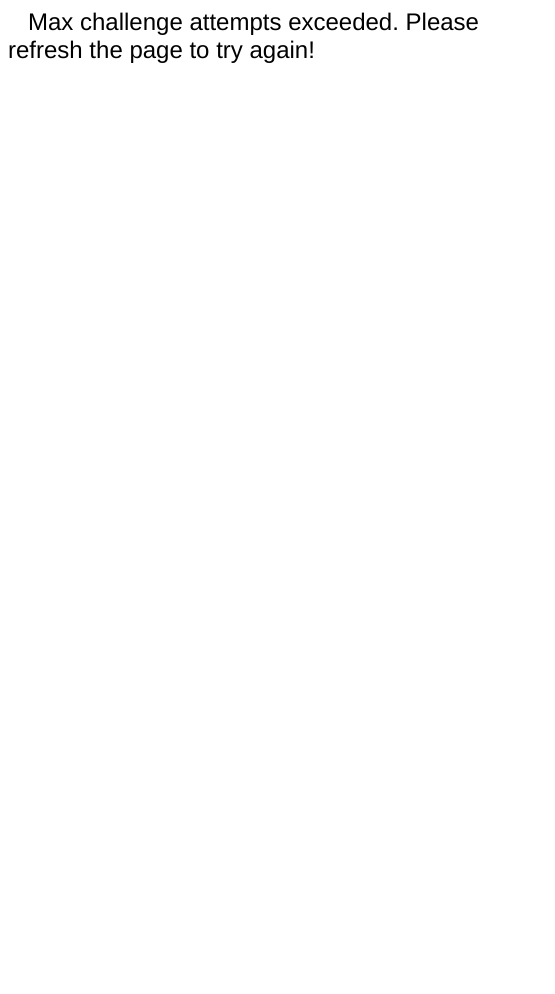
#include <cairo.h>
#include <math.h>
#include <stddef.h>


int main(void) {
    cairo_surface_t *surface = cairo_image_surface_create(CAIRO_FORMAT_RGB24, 555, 994);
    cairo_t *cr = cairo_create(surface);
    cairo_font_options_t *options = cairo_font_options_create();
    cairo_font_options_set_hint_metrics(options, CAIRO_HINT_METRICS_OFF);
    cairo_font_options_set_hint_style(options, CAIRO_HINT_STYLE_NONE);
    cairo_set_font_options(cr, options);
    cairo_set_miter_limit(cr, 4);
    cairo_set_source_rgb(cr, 1, 1, 1);
    cairo_paint(cr);
    cairo_select_font_face(cr, "Liberation Sans", CAIRO_FONT_SLANT_NORMAL, CAIRO_FONT_WEIGHT_NORMAL);
    cairo_set_font_size(cr, 24);
    cairo_set_source_rgb(cr, 0, 0, 0);
    cairo_move_to(cr, 28, 30);
    cairo_show_text(cr, "Max challenge attempts exceeded. Please");
    cairo_move_to(cr, 8, 58);
    cairo_show_text(cr, "refresh the page to try again!");
    cairo_surface_write_to_png(surface, "page.png");
    cairo_font_options_destroy(options);
    cairo_destroy(cr);
    cairo_surface_destroy(surface);
    return 0;
}
